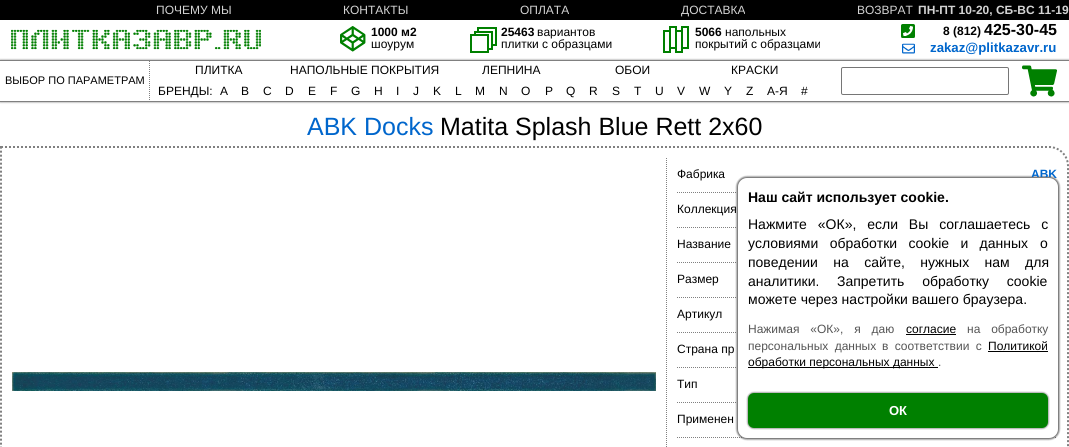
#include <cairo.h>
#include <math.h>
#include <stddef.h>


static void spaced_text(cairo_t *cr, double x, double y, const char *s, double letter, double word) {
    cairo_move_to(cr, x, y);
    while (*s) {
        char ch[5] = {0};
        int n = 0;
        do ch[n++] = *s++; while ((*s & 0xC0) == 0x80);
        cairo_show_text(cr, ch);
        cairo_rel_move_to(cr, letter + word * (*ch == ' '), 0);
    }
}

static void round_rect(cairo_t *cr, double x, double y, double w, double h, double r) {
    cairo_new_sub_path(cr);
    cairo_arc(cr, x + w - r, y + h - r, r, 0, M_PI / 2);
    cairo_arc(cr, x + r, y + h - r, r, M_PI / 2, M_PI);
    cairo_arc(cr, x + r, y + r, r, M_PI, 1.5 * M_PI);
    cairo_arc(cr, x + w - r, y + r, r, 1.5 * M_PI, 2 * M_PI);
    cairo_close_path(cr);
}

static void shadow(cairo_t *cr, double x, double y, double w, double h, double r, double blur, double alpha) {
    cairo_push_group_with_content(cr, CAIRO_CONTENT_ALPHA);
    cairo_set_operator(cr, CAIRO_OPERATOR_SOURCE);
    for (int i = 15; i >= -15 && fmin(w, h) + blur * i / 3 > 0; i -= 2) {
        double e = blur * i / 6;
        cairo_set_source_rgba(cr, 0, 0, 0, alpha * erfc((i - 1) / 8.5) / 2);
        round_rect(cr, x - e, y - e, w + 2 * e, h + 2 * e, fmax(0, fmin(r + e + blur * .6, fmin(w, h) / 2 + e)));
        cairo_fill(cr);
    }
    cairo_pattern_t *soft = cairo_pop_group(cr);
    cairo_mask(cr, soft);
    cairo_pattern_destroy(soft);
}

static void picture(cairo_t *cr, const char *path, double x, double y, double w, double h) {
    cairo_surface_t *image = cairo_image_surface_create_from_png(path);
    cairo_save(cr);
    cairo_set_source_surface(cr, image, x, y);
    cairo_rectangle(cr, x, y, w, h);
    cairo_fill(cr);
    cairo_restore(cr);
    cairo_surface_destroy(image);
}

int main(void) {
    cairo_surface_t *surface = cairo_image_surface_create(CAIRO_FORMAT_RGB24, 1069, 447);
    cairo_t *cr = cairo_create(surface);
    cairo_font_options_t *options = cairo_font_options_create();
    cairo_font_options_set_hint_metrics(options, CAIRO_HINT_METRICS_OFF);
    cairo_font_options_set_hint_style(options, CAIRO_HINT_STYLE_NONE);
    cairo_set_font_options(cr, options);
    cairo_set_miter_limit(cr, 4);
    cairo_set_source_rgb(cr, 1, 1, 1);
    cairo_paint(cr);
    cairo_set_source_rgb(cr, 0, 0, 0);
    cairo_rectangle(cr, 0, 0, 1069, 20);
    cairo_fill(cr);
    cairo_select_font_face(cr, "Liberation Sans", CAIRO_FONT_SLANT_NORMAL, CAIRO_FONT_WEIGHT_NORMAL);
    cairo_set_font_size(cr, 12);
    cairo_set_source_rgb(cr, 0.827, 0.827, 0.827);
    cairo_move_to(cr, 156, 14);
    cairo_show_text(cr, "ПОЧЕМУ МЫ");
    cairo_move_to(cr, 343, 14);
    cairo_show_text(cr, "КОНТАКТЫ");
    cairo_move_to(cr, 520, 14);
    cairo_show_text(cr, "ОПЛАТА");
    cairo_move_to(cr, 681, 14);
    cairo_show_text(cr, "ДОСТАВКА");
    cairo_move_to(cr, 857, 14);
    cairo_show_text(cr, "ВОЗВРАТ");
    cairo_select_font_face(cr, "Liberation Sans", CAIRO_FONT_SLANT_NORMAL, CAIRO_FONT_WEIGHT_BOLD);
    cairo_move_to(cr, 918, 14);
    cairo_show_text(cr, "ПН-ПТ 10-20, СБ-ВС 11-19");
    picture(cr, "img1.png", 11, 29, 250, 21);
    picture(cr, "img2.png", 340, 26, 26, 26);
    cairo_set_source_rgb(cr, 0, 0, 0);
    cairo_move_to(cr, 371, 36);
    cairo_show_text(cr, "1000 м2");
    cairo_select_font_face(cr, "Liberation Sans", CAIRO_FONT_SLANT_NORMAL, CAIRO_FONT_WEIGHT_NORMAL);
    cairo_move_to(cr, 371, 48);
    cairo_show_text(cr, "шоурум");
    picture(cr, "img3.png", 470, 27, 27, 26);
    cairo_select_font_face(cr, "Liberation Sans", CAIRO_FONT_SLANT_NORMAL, CAIRO_FONT_WEIGHT_BOLD);
    cairo_move_to(cr, 501, 36);
    cairo_show_text(cr, "25463");
    cairo_select_font_face(cr, "Liberation Sans", CAIRO_FONT_SLANT_NORMAL, CAIRO_FONT_WEIGHT_NORMAL);
    cairo_move_to(cr, 537, 36);
    cairo_show_text(cr, "вариантов");
    cairo_move_to(cr, 501, 48);
    cairo_show_text(cr, "плитки с образцами");
    cairo_rectangle(cr, 682, 27, 6, 21);
    cairo_set_source_rgb(cr, 0, 0.502, 0);
    cairo_stroke(cr);
    cairo_rectangle(cr, 676, 31, 6, 21);
    cairo_stroke(cr);
    cairo_rectangle(cr, 670, 27, 6, 21);
    cairo_stroke(cr);
    cairo_rectangle(cr, 664, 31, 6, 21);
    cairo_stroke(cr);
    cairo_select_font_face(cr, "Liberation Sans", CAIRO_FONT_SLANT_NORMAL, CAIRO_FONT_WEIGHT_BOLD);
    cairo_set_source_rgb(cr, 0, 0, 0);
    cairo_move_to(cr, 695, 36);
    cairo_show_text(cr, "5066");
    cairo_select_font_face(cr, "Liberation Sans", CAIRO_FONT_SLANT_NORMAL, CAIRO_FONT_WEIGHT_NORMAL);
    cairo_move_to(cr, 725, 36);
    cairo_show_text(cr, "напольных");
    cairo_move_to(cr, 695, 48);
    cairo_show_text(cr, "покрытий с образцами");
    picture(cr, "img4.png", 901, 24, 14, 14);
    cairo_select_font_face(cr, "Liberation Sans", CAIRO_FONT_SLANT_NORMAL, CAIRO_FONT_WEIGHT_BOLD);
    cairo_move_to(cr, 943, 35);
    cairo_show_text(cr, "8 (812)");
    cairo_set_font_size(cr, 16);
    cairo_move_to(cr, 984, 35);
    cairo_show_text(cr, "425-30-45");
    picture(cr, "img5.png", 902, 43, 13, 11);
    cairo_set_font_size(cr, 13.25);
    cairo_set_source_rgb(cr, 0, 0.4, 0.8);
    cairo_move_to(cr, 930, 52);
    cairo_show_text(cr, "zakaz@plitkazavr.ru");
    cairo_new_path(cr);
    cairo_move_to(cr, 1, 147);
    cairo_line_to(cr, 1049, 147);
    cairo_curve_to(cr, 1059.5, 147, 1068, 155.5, 1068, 166);
    cairo_line_to(cr, 1068, 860);
    cairo_curve_to(cr, 1068, 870.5, 1059.5, 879, 1049, 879);
    cairo_line_to(cr, 1, 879);
    cairo_close_path(cr);
    cairo_set_source_rgb(cr, 0.502, 0.502, 0.502);
    cairo_set_dash(cr, (double[]){2, 2}, 2, 0);
    cairo_stroke(cr);
    cairo_new_path(cr);
    cairo_move_to(cr, 677, 192.5);
    cairo_line_to(cr, 1057, 192.5);
    cairo_set_line_width(cr, 1);
    cairo_set_dash(cr, (double[]){1, 1}, 2, 0);
    cairo_stroke(cr);
    cairo_new_path(cr);
    cairo_move_to(cr, 677, 227.5);
    cairo_line_to(cr, 1057, 227.5);
    cairo_stroke(cr);
    cairo_new_path(cr);
    cairo_move_to(cr, 677, 262.5);
    cairo_line_to(cr, 1057, 262.5);
    cairo_stroke(cr);
    cairo_new_path(cr);
    cairo_move_to(cr, 677, 297.5);
    cairo_line_to(cr, 1057, 297.5);
    cairo_stroke(cr);
    cairo_new_path(cr);
    cairo_move_to(cr, 677, 332.5);
    cairo_line_to(cr, 1057, 332.5);
    cairo_stroke(cr);
    cairo_new_path(cr);
    cairo_move_to(cr, 677, 367.5);
    cairo_line_to(cr, 1057, 367.5);
    cairo_stroke(cr);
    cairo_new_path(cr);
    cairo_move_to(cr, 677, 402.5);
    cairo_line_to(cr, 1057, 402.5);
    cairo_stroke(cr);
    cairo_new_path(cr);
    cairo_move_to(cr, 677, 437.5);
    cairo_line_to(cr, 1057, 437.5);
    cairo_stroke(cr);
    cairo_set_source_rgb(cr, 0, 0, 0);
    shadow(cr, 736, 176, 324, 264, 11, 0.5, 0.3);
    cairo_set_font_size(cr, 12);
    cairo_set_source_rgb(cr, 0, 0.4, 0.8);
    cairo_move_to(cr, 1031, 178);
    cairo_show_text(cr, "ABK");
    cairo_set_source_rgb(cr, 1, 1, 1);
    round_rect(cr, 737.5, 177.5, 321, 261, 9.5);
    cairo_fill_preserve(cr);
    cairo_set_source_rgb(cr, 0.502, 0.502, 0.502);
    cairo_set_dash(cr, NULL, 0, 0);
    cairo_stroke(cr);
    cairo_set_font_size(cr, 14);
    cairo_set_source_rgb(cr, 0, 0, 0);
    cairo_move_to(cr, 748, 202);
    cairo_show_text(cr, "Наш сайт использует cookie.");
    cairo_select_font_face(cr, "Liberation Sans", CAIRO_FONT_SLANT_NORMAL, CAIRO_FONT_WEIGHT_NORMAL);
    spaced_text(cr, 748, 229, "Нажмите «ОК», если Вы соглашаетесь с", 0, 7);
    spaced_text(cr, 748, 248, "условиями обработки cookie и данных", 0, 7.5);
    cairo_move_to(cr, 1040, 248);
    cairo_show_text(cr, "о");
    spaced_text(cr, 748, 267, "поведении на сайте, нужных нам для", 0, 11.5);
    cairo_move_to(cr, 748, 286);
    cairo_show_text(cr, "аналитики.");
    spaced_text(cr, 837, 286, "Запретить обработку cookie", 0, 14);
    cairo_move_to(cr, 748, 304);
    cairo_show_text(cr, "можете через настройки вашего браузера.");
    cairo_set_font_size(cr, 12);
    cairo_set_source_rgb(cr, 0.333, 0.333, 0.333);
    spaced_text(cr, 748, 333, "Нажимая «ОК», я даю", 0, 7.5);
    cairo_set_source_rgb(cr, 0, 0, 0);
    cairo_move_to(cr, 906, 333);
    cairo_show_text(cr, "согласие");
    cairo_rectangle(cr, 906, 334, 50, 1);
    cairo_fill(cr);
    cairo_set_source_rgb(cr, 0.333, 0.333, 0.333);
    spaced_text(cr, 967, 333, "на обработку", 0, 7.5);
    spaced_text(cr, 748, 350, "персональных данных", 0, 3);
    spaced_text(cr, 882, 350, "в соответствии с", 0, 3);
    cairo_set_source_rgb(cr, 0, 0, 0);
    cairo_move_to(cr, 988, 350);
    cairo_show_text(cr, "Политикой");
    cairo_rectangle(cr, 988, 351, 60, 1);
    cairo_fill(cr);
    cairo_rectangle(cr, 748, 367, 190, 1);
    cairo_fill(cr);
    cairo_move_to(cr, 748, 366);
    cairo_show_text(cr, "обработки персональных данных");
    cairo_set_source_rgb(cr, 0.333, 0.333, 0.333);
    cairo_move_to(cr, 938, 366);
    cairo_show_text(cr, ".");
    cairo_set_source_rgb(cr, 0, 0, 0);
    shadow(cr, 747, 392, 302, 37, 7, 0.5, 0.3);
    cairo_set_source_rgb(cr, 0, 0.502, 0);
    round_rect(cr, 748, 393, 300, 35, 6);
    cairo_fill(cr);
    cairo_select_font_face(cr, "Liberation Sans", CAIRO_FONT_SLANT_NORMAL, CAIRO_FONT_WEIGHT_BOLD);
    cairo_set_font_size(cr, 13);
    cairo_set_source_rgb(cr, 1, 1, 1);
    cairo_move_to(cr, 889, 415);
    cairo_show_text(cr, "ОК");
    cairo_save(cr);
    cairo_set_fill_rule(cr, CAIRO_FILL_RULE_EVEN_ODD);
    cairo_new_path(cr);
    cairo_move_to(cr, 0, 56);
    cairo_line_to(cr, 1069, 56);
    cairo_line_to(cr, 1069, 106);
    cairo_line_to(cr, 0, 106);
    cairo_close_path(cr);
    cairo_move_to(cr, 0, 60);
    cairo_line_to(cr, 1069, 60);
    cairo_line_to(cr, 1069, 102);
    cairo_line_to(cr, 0, 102);
    cairo_close_path(cr);
    cairo_clip(cr);
    cairo_set_source_rgb(cr, 0, 0, 0);
    shadow(cr, 0, 60, 1069, 42, 0, 1, 0.5);
    cairo_restore(cr);
    cairo_set_source_rgb(cr, 0.502, 0.502, 0.502);
    cairo_rectangle(cr, 0, 60, 1069, 1);
    cairo_fill(cr);
    cairo_rectangle(cr, 0, 101, 1069, 1);
    cairo_fill(cr);
    cairo_new_path(cr);
    cairo_move_to(cr, 149.5, 61);
    cairo_line_to(cr, 149.5, 101);
    cairo_set_dash(cr, (double[]){1, 1}, 2, 0);
    cairo_stroke(cr);
    cairo_select_font_face(cr, "Liberation Sans", CAIRO_FONT_SLANT_NORMAL, CAIRO_FONT_WEIGHT_NORMAL);
    cairo_set_font_size(cr, 11);
    cairo_set_source_rgb(cr, 0, 0, 0);
    cairo_move_to(cr, 5, 84);
    cairo_show_text(cr, "ВЫБОР ПО ПАРАМЕТРАМ");
    cairo_set_font_size(cr, 12);
    cairo_move_to(cr, 195, 74);
    cairo_show_text(cr, "ПЛИТКА");
    cairo_move_to(cr, 290, 74);
    cairo_show_text(cr, "НАПОЛЬНЫЕ ПОКРЫТИЯ");
    cairo_move_to(cr, 482, 74);
    cairo_show_text(cr, "ЛЕПНИНА");
    cairo_move_to(cr, 615, 74);
    cairo_show_text(cr, "ОБОИ");
    cairo_move_to(cr, 731, 74);
    cairo_show_text(cr, "КРАСКИ");
    cairo_move_to(cr, 158, 95);
    cairo_show_text(cr, "БРЕНДЫ:");
    cairo_move_to(cr, 220, 95);
    cairo_show_text(cr, "A");
    cairo_move_to(cr, 241, 95);
    cairo_show_text(cr, "B");
    cairo_move_to(cr, 263, 95);
    cairo_show_text(cr, "C");
    cairo_move_to(cr, 285, 95);
    cairo_show_text(cr, "D");
    cairo_move_to(cr, 308, 95);
    cairo_show_text(cr, "E");
    cairo_move_to(cr, 330, 95);
    cairo_show_text(cr, "F");
    cairo_move_to(cr, 351, 95);
    cairo_show_text(cr, "G");
    cairo_move_to(cr, 374, 95);
    cairo_show_text(cr, "H");
    cairo_move_to(cr, 396, 95);
    cairo_show_text(cr, "I");
    cairo_move_to(cr, 413, 95);
    cairo_show_text(cr, "J");
    cairo_move_to(cr, 433, 95);
    cairo_show_text(cr, "K");
    cairo_move_to(cr, 455, 95);
    cairo_show_text(cr, "L");
    cairo_move_to(cr, 475, 95);
    cairo_show_text(cr, "M");
    cairo_move_to(cr, 499, 95);
    cairo_show_text(cr, "N");
    cairo_move_to(cr, 521, 95);
    cairo_show_text(cr, "O");
    cairo_move_to(cr, 545, 95);
    cairo_show_text(cr, "P");
    cairo_move_to(cr, 566, 95);
    cairo_show_text(cr, "Q");
    cairo_move_to(cr, 589, 95);
    cairo_show_text(cr, "R");
    cairo_move_to(cr, 612, 95);
    cairo_show_text(cr, "S");
    cairo_move_to(cr, 634, 95);
    cairo_show_text(cr, "T");
    cairo_move_to(cr, 655, 95);
    cairo_show_text(cr, "U");
    cairo_move_to(cr, 677, 95);
    cairo_show_text(cr, "V");
    cairo_move_to(cr, 699, 95);
    cairo_show_text(cr, "W");
    cairo_move_to(cr, 724, 95);
    cairo_show_text(cr, "Y");
    cairo_move_to(cr, 746, 95);
    cairo_show_text(cr, "Z");
    cairo_move_to(cr, 767, 95);
    cairo_show_text(cr, "А-Я");
    cairo_move_to(cr, 801, 95);
    cairo_show_text(cr, "#");
    round_rect(cr, 841.5, 67.5, 167, 27, 1.5);
    cairo_set_source_rgb(cr, 0.463, 0.463, 0.463);
    cairo_set_dash(cr, NULL, 0, 0);
    cairo_stroke(cr);
    picture(cr, "img6.png", 1022, 65, 35, 32);
    cairo_set_font_size(cr, 25);
    cairo_set_source_rgb(cr, 0, 0.4, 0.8);
    cairo_move_to(cr, 307, 135);
    cairo_show_text(cr, "ABK Docks");
    cairo_set_source_rgb(cr, 0, 0, 0);
    cairo_move_to(cr, 440, 135);
    cairo_show_text(cr, "Matita Splash Blue Rett 2x60");
    picture(cr, "img7.png", 12, 372, 644, 19);
    cairo_new_path(cr);
    cairo_move_to(cr, 666.5, 158);
    cairo_line_to(cr, 666.5, 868);
    cairo_set_source_rgb(cr, 0.502, 0.502, 0.502);
    cairo_set_dash(cr, (double[]){1, 1}, 2, 0);
    cairo_stroke(cr);
    cairo_set_font_size(cr, 12);
    cairo_set_source_rgb(cr, 0, 0, 0);
    cairo_move_to(cr, 677, 178);
    cairo_show_text(cr, "Фабрика");
    cairo_move_to(cr, 677, 213);
    cairo_show_text(cr, "Коллекция");
    cairo_move_to(cr, 677, 248);
    cairo_show_text(cr, "Название");
    cairo_move_to(cr, 677, 283);
    cairo_show_text(cr, "Размер");
    cairo_move_to(cr, 677, 318);
    cairo_show_text(cr, "Артикул");
    cairo_move_to(cr, 677, 353);
    cairo_show_text(cr, "Страна пр");
    cairo_move_to(cr, 677, 388);
    cairo_show_text(cr, "Тип");
    cairo_move_to(cr, 677, 423);
    cairo_show_text(cr, "Применен");
    cairo_surface_write_to_png(surface, "page.png");
    cairo_font_options_destroy(options);
    cairo_destroy(cr);
    cairo_surface_destroy(surface);
    return 0;
}
